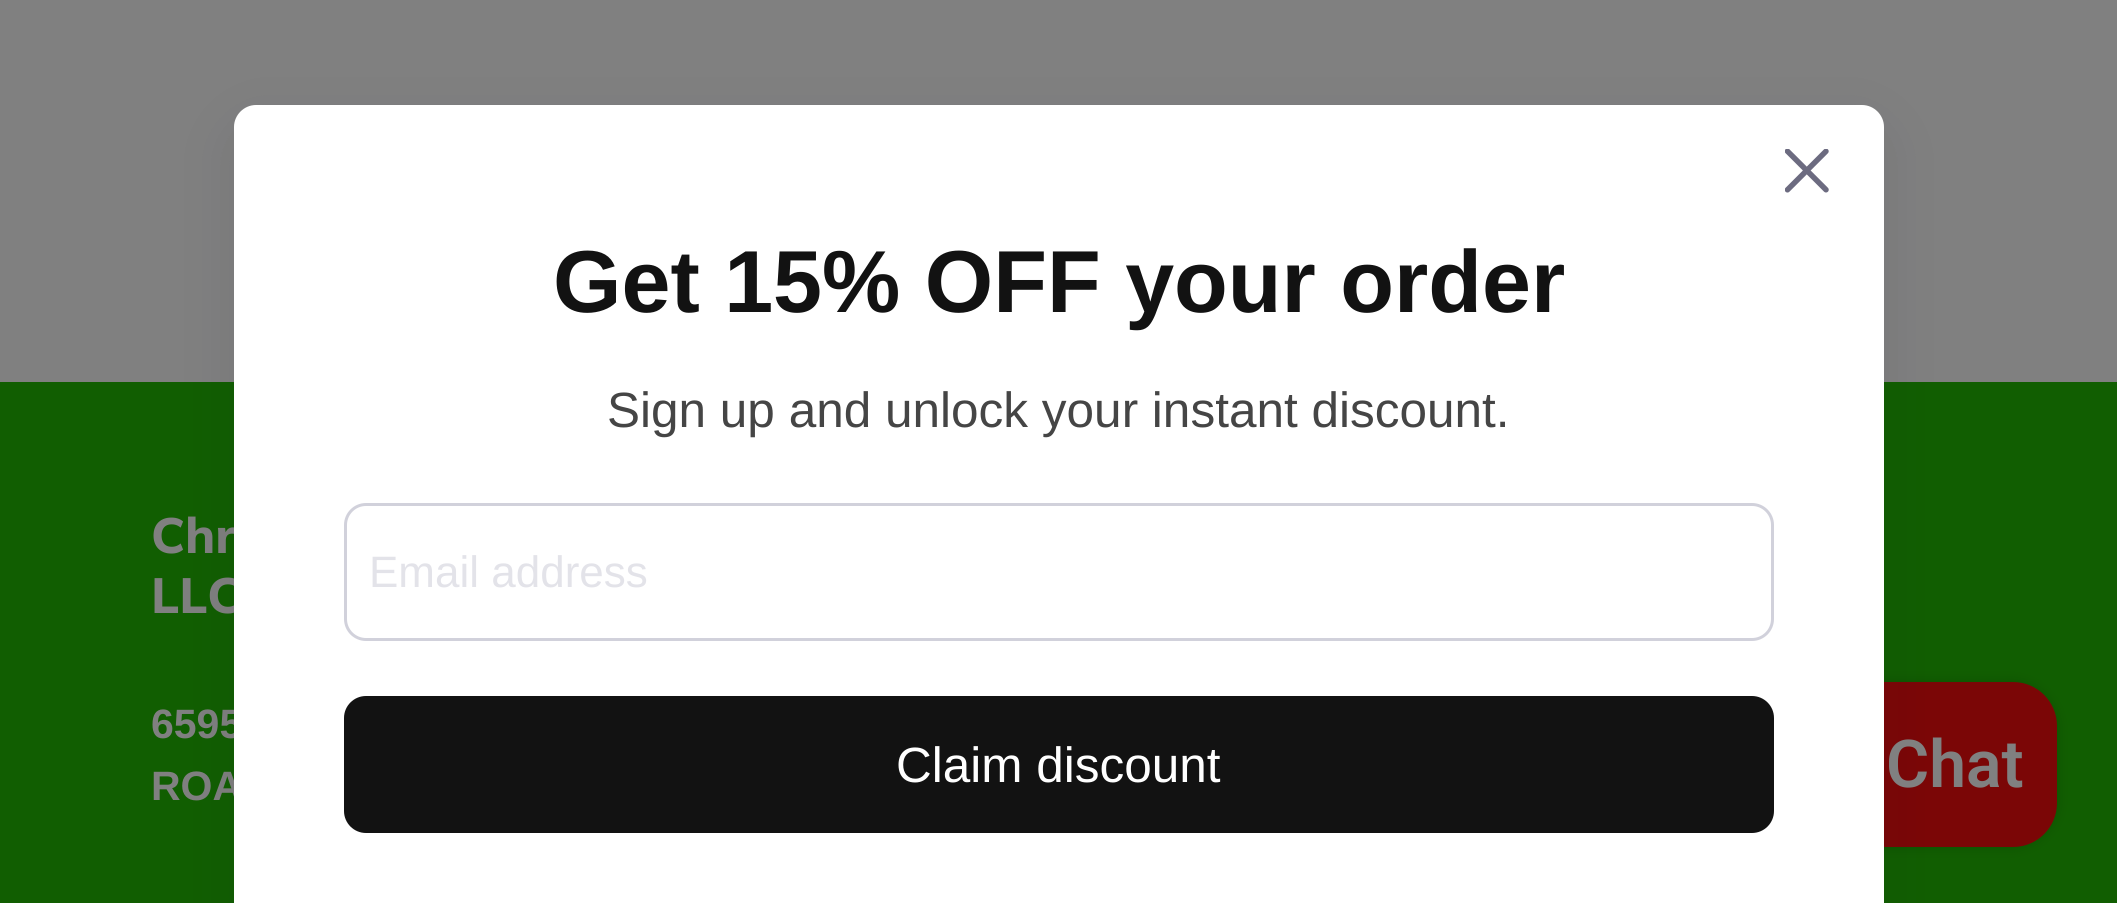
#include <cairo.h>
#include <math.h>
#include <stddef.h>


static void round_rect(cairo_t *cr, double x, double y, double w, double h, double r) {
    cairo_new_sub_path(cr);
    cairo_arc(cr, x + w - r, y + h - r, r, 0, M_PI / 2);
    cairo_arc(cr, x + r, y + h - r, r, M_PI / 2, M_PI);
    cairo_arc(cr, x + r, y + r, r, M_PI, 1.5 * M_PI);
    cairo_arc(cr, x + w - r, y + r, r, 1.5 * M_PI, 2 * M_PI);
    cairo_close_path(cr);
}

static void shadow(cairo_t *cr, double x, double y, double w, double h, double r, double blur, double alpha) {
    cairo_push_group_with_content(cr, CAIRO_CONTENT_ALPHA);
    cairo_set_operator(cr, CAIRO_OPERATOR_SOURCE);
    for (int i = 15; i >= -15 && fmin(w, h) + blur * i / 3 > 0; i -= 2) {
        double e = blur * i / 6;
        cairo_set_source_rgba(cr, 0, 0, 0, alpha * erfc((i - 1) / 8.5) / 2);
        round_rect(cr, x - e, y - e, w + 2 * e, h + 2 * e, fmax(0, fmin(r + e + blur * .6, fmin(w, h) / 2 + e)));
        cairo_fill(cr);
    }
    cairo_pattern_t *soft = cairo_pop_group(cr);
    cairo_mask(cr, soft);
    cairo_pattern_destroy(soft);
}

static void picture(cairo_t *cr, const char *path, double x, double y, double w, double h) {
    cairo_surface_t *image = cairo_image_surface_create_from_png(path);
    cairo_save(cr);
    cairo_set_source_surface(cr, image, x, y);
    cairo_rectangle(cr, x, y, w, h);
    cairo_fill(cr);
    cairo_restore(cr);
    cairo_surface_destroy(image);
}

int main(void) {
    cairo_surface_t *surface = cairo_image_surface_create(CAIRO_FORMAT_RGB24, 2117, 903);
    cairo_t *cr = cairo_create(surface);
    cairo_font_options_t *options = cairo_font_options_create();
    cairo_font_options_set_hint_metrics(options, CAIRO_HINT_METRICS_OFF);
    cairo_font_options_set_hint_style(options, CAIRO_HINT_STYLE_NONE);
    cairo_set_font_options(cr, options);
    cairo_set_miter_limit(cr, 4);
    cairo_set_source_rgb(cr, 0.502, 0.502, 0.502);
    cairo_paint(cr);
    cairo_set_source_rgb(cr, 0.067, 0.369, 0.004);
    cairo_rectangle(cr, 0, 382, 2117, 521);
    cairo_fill(cr);
    cairo_select_font_face(cr, "Muli ExtraBold", CAIRO_FONT_SLANT_NORMAL, CAIRO_FONT_WEIGHT_NORMAL);
    cairo_set_font_size(cr, 49.5);
    cairo_set_source_rgb(cr, 0.502, 0.502, 0.502);
    cairo_move_to(cr, 151, 553);
    cairo_show_text(cr, "Chr");
    cairo_move_to(cr, 151, 613);
    cairo_show_text(cr, "LLC");
    cairo_select_font_face(cr, "Liberation Sans", CAIRO_FONT_SLANT_NORMAL, CAIRO_FONT_WEIGHT_BOLD);
    cairo_set_font_size(cr, 41);
    cairo_move_to(cr, 151, 738);
    cairo_show_text(cr, "6595");
    cairo_move_to(cr, 151, 800);
    cairo_show_text(cr, "ROA");
    cairo_set_source_rgb(cr, 0, 0, 0);
    shadow(cr, 1746, 682, 311, 165, 44, 7, 0.15);
    cairo_set_source_rgb(cr, 0.482, 0.024, 0.024);
    round_rect(cr, 1746, 682, 311, 165, 44);
    cairo_fill(cr);
    cairo_set_source_rgb(cr, 0.071, 0.067, 0.153);
    shadow(cr, 234, 127, 1650, 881, 22, 27.5, 0.1);
    cairo_set_source_rgb(cr, 1, 1, 1);
    cairo_new_path(cr);
    cairo_move_to(cr, 256, 105);
    cairo_line_to(cr, 1862, 105);
    cairo_curve_to(cr, 1874, 105, 1884, 115, 1884, 127);
    cairo_line_to(cr, 1884, 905);
    cairo_line_to(cr, 234, 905);
    cairo_line_to(cr, 234, 127);
    cairo_curve_to(cr, 234, 115, 244, 105, 256, 105);
    cairo_close_path(cr);
    cairo_fill(cr);
    picture(cr, "img1.png", 1785, 149, 44, 44);
    cairo_set_font_size(cr, 88);
    cairo_set_source_rgb(cr, 0.071, 0.071, 0.071);
    cairo_move_to(cr, 553, 312);
    cairo_show_text(cr, "Get 15% OFF your order");
    cairo_select_font_face(cr, "Liberation Sans", CAIRO_FONT_SLANT_NORMAL, CAIRO_FONT_WEIGHT_NORMAL);
    cairo_set_font_size(cr, 49.5);
    cairo_set_source_rgb(cr, 0.271, 0.271, 0.271);
    cairo_move_to(cr, 607, 427);
    cairo_show_text(cr, "Sign up and unlock your instant discount.");
    round_rect(cr, 345.5, 504.5, 1427, 135, 20.5);
    cairo_set_source_rgb(cr, 0.82, 0.82, 0.859);
    cairo_set_line_width(cr, 3);
    cairo_stroke(cr);
    cairo_set_font_size(cr, 44);
    cairo_set_source_rgb(cr, 0.89, 0.89, 0.914);
    cairo_move_to(cr, 369, 587);
    cairo_show_text(cr, "Email address");
    cairo_set_source_rgb(cr, 0.071, 0.071, 0.071);
    round_rect(cr, 344, 696, 1430, 137, 22);
    cairo_fill(cr);
    cairo_set_font_size(cr, 49.5);
    cairo_set_source_rgb(cr, 1, 1, 1);
    cairo_move_to(cr, 896, 782);
    cairo_show_text(cr, "Claim discount");
    cairo_select_font_face(cr, "Roboto SemiBold", CAIRO_FONT_SLANT_NORMAL, CAIRO_FONT_WEIGHT_NORMAL);
    cairo_set_font_size(cr, 66);
    cairo_set_source_rgb(cr, 0.502, 0.502, 0.502);
    cairo_move_to(cr, 1886, 787);
    cairo_show_text(cr, "Chat");
    cairo_surface_write_to_png(surface, "page.png");
    cairo_font_options_destroy(options);
    cairo_destroy(cr);
    cairo_surface_destroy(surface);
    return 0;
}
